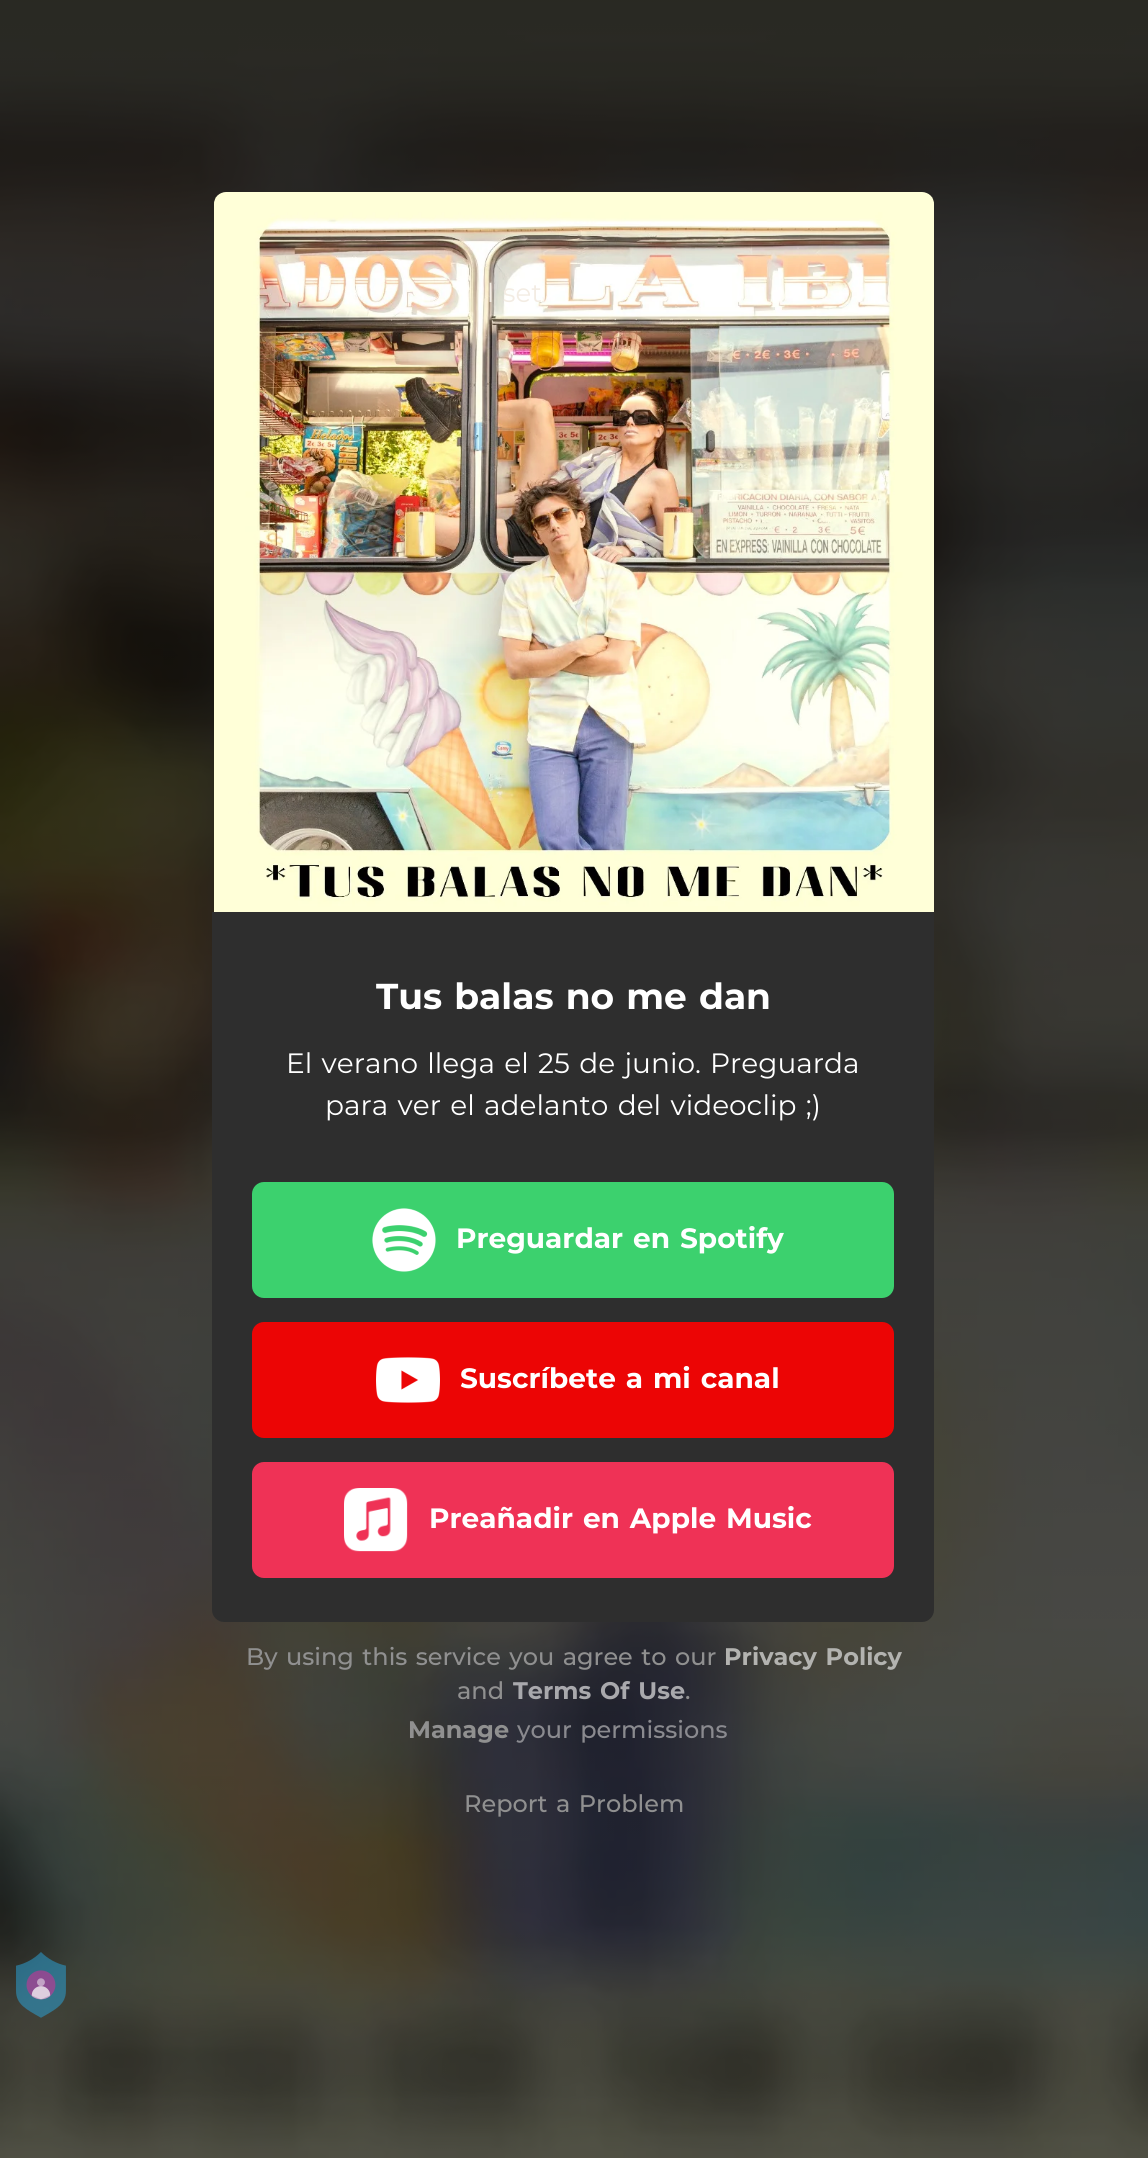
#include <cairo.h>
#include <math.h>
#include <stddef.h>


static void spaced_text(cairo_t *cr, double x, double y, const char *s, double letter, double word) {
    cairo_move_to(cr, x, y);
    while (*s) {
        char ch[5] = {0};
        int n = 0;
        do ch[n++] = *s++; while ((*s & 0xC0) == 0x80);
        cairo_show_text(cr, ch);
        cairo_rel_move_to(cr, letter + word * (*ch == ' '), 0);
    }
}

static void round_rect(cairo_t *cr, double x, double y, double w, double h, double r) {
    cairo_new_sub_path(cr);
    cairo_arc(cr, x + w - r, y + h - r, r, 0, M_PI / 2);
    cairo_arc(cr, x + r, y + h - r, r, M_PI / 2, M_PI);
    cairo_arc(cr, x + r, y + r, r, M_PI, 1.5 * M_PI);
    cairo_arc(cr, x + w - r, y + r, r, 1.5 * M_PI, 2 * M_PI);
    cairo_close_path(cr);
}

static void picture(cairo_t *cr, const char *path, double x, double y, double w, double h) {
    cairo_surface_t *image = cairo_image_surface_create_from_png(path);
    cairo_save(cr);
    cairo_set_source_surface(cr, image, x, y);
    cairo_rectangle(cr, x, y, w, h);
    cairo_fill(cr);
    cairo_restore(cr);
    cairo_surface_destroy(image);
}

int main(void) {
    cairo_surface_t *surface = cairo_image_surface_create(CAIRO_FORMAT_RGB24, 1148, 2158);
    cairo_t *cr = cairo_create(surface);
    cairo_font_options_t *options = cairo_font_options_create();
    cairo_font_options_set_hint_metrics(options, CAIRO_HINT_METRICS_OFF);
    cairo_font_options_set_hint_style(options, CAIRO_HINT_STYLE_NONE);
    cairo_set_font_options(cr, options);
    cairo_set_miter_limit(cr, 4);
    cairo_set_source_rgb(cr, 1, 1, 1);
    cairo_paint(cr);
    picture(cr, "img1.png", 0, 0, 1148, 2158);
    picture(cr, "img2.png", 214, 192, 720, 720);
    cairo_select_font_face(cr, "Montserrat", CAIRO_FONT_SLANT_NORMAL, CAIRO_FONT_WEIGHT_NORMAL);
    cairo_set_font_size(cr, 26);
    cairo_set_source_rgb(cr, 0.953, 0.925, 0.89);
    spaced_text(cr, 487, 302, "l set", 0, 2);
    cairo_set_source_rgb(cr, 0.18, 0.18, 0.18);
    cairo_new_path(cr);
    cairo_move_to(cr, 212, 912);
    cairo_line_to(cr, 934, 912);
    cairo_line_to(cr, 934, 1610);
    cairo_curve_to(cr, 934, 1616.5, 928.5, 1622, 922, 1622);
    cairo_line_to(cr, 224, 1622);
    cairo_curve_to(cr, 217.5, 1622, 212, 1616.5, 212, 1610);
    cairo_close_path(cr);
    cairo_fill(cr);
    cairo_select_font_face(cr, "Montserrat", CAIRO_FONT_SLANT_NORMAL, CAIRO_FONT_WEIGHT_BOLD);
    cairo_set_font_size(cr, 36);
    cairo_set_source_rgb(cr, 1, 1, 1);
    spaced_text(cr, 376, 1009, "Tus balas no me dan", 0, 2);
    cairo_select_font_face(cr, "Montserrat", CAIRO_FONT_SLANT_NORMAL, CAIRO_FONT_WEIGHT_NORMAL);
    cairo_set_font_size(cr, 28);
    spaced_text(cr, 286, 1073, "El verano llega el 25 de junio.", 0, 2);
    cairo_move_to(cr, 710, 1073);
    cairo_show_text(cr, "Preguarda");
    spaced_text(cr, 325, 1115, "para ver el adelanto del videoclip ;)", 0, 2);
    cairo_set_source_rgb(cr, 0.235, 0.82, 0.431);
    round_rect(cr, 252, 1182, 642, 116, 12);
    cairo_fill(cr);
    picture(cr, "img3.png", 372, 1208, 64, 64);
    cairo_select_font_face(cr, "Montserrat", CAIRO_FONT_SLANT_NORMAL, CAIRO_FONT_WEIGHT_BOLD);
    cairo_set_source_rgb(cr, 1, 1, 1);
    spaced_text(cr, 456, 1248, "Preguardar en Spotify", 0, 2);
    cairo_set_source_rgb(cr, 0.922, 0.02, 0.02);
    round_rect(cr, 252, 1322, 642, 116, 12);
    cairo_fill(cr);
    picture(cr, "img4.png", 376, 1357, 64, 46);
    cairo_set_source_rgb(cr, 1, 1, 1);
    spaced_text(cr, 460, 1388, "Suscríbete a mi canal", 0, 2);
    cairo_set_source_rgb(cr, 0.937, 0.196, 0.337);
    round_rect(cr, 252, 1462, 642, 116, 12);
    cairo_fill(cr);
    picture(cr, "img5.png", 344, 1488, 64, 64);
    cairo_set_source_rgb(cr, 1, 1, 1);
    spaced_text(cr, 429, 1528, "Preañadir en Apple Music", 0, 2);
    cairo_select_font_face(cr, "Montserrat Medium", CAIRO_FONT_SLANT_NORMAL, CAIRO_FONT_WEIGHT_NORMAL);
    cairo_set_font_size(cr, 24);
    cairo_set_source_rgb(cr, 0.565, 0.565, 0.565);
    spaced_text(cr, 246, 1665, "By using this service you agree to our", 0, 2);
    cairo_select_font_face(cr, "Montserrat", CAIRO_FONT_SLANT_NORMAL, CAIRO_FONT_WEIGHT_BOLD);
    cairo_set_source_rgb(cr, 0.702, 0.702, 0.69);
    spaced_text(cr, 724, 1665, "Privacy Policy", 0, 2);
    cairo_select_font_face(cr, "Montserrat Medium", CAIRO_FONT_SLANT_NORMAL, CAIRO_FONT_WEIGHT_NORMAL);
    cairo_set_source_rgb(cr, 0.565, 0.565, 0.565);
    cairo_move_to(cr, 457, 1699);
    cairo_show_text(cr, "and");
    cairo_select_font_face(cr, "Montserrat", CAIRO_FONT_SLANT_NORMAL, CAIRO_FONT_WEIGHT_BOLD);
    cairo_set_source_rgb(cr, 0.663, 0.663, 0.678);
    spaced_text(cr, 513, 1699, "Terms Of Use", 0, 2);
    cairo_select_font_face(cr, "Montserrat Medium", CAIRO_FONT_SLANT_NORMAL, CAIRO_FONT_WEIGHT_NORMAL);
    cairo_set_source_rgb(cr, 0.565, 0.565, 0.565);
    cairo_move_to(cr, 685, 1699);
    cairo_show_text(cr, ".");
    cairo_select_font_face(cr, "Montserrat", CAIRO_FONT_SLANT_NORMAL, CAIRO_FONT_WEIGHT_BOLD);
    cairo_move_to(cr, 408, 1738);
    cairo_show_text(cr, "Manage");
    cairo_select_font_face(cr, "Montserrat Medium", CAIRO_FONT_SLANT_NORMAL, CAIRO_FONT_WEIGHT_NORMAL);
    cairo_set_source_rgb(cr, 0.541, 0.541, 0.561);
    spaced_text(cr, 517, 1738, "your permissions", 0, 2);
    cairo_set_source_rgb(cr, 0.565, 0.565, 0.565);
    spaced_text(cr, 464, 1812, "Report a Problem", 0, 2);
    picture(cr, "img6.png", 16, 1952, 50, 66);
    cairo_surface_write_to_png(surface, "page.png");
    cairo_font_options_destroy(options);
    cairo_destroy(cr);
    cairo_surface_destroy(surface);
    return 0;
}
